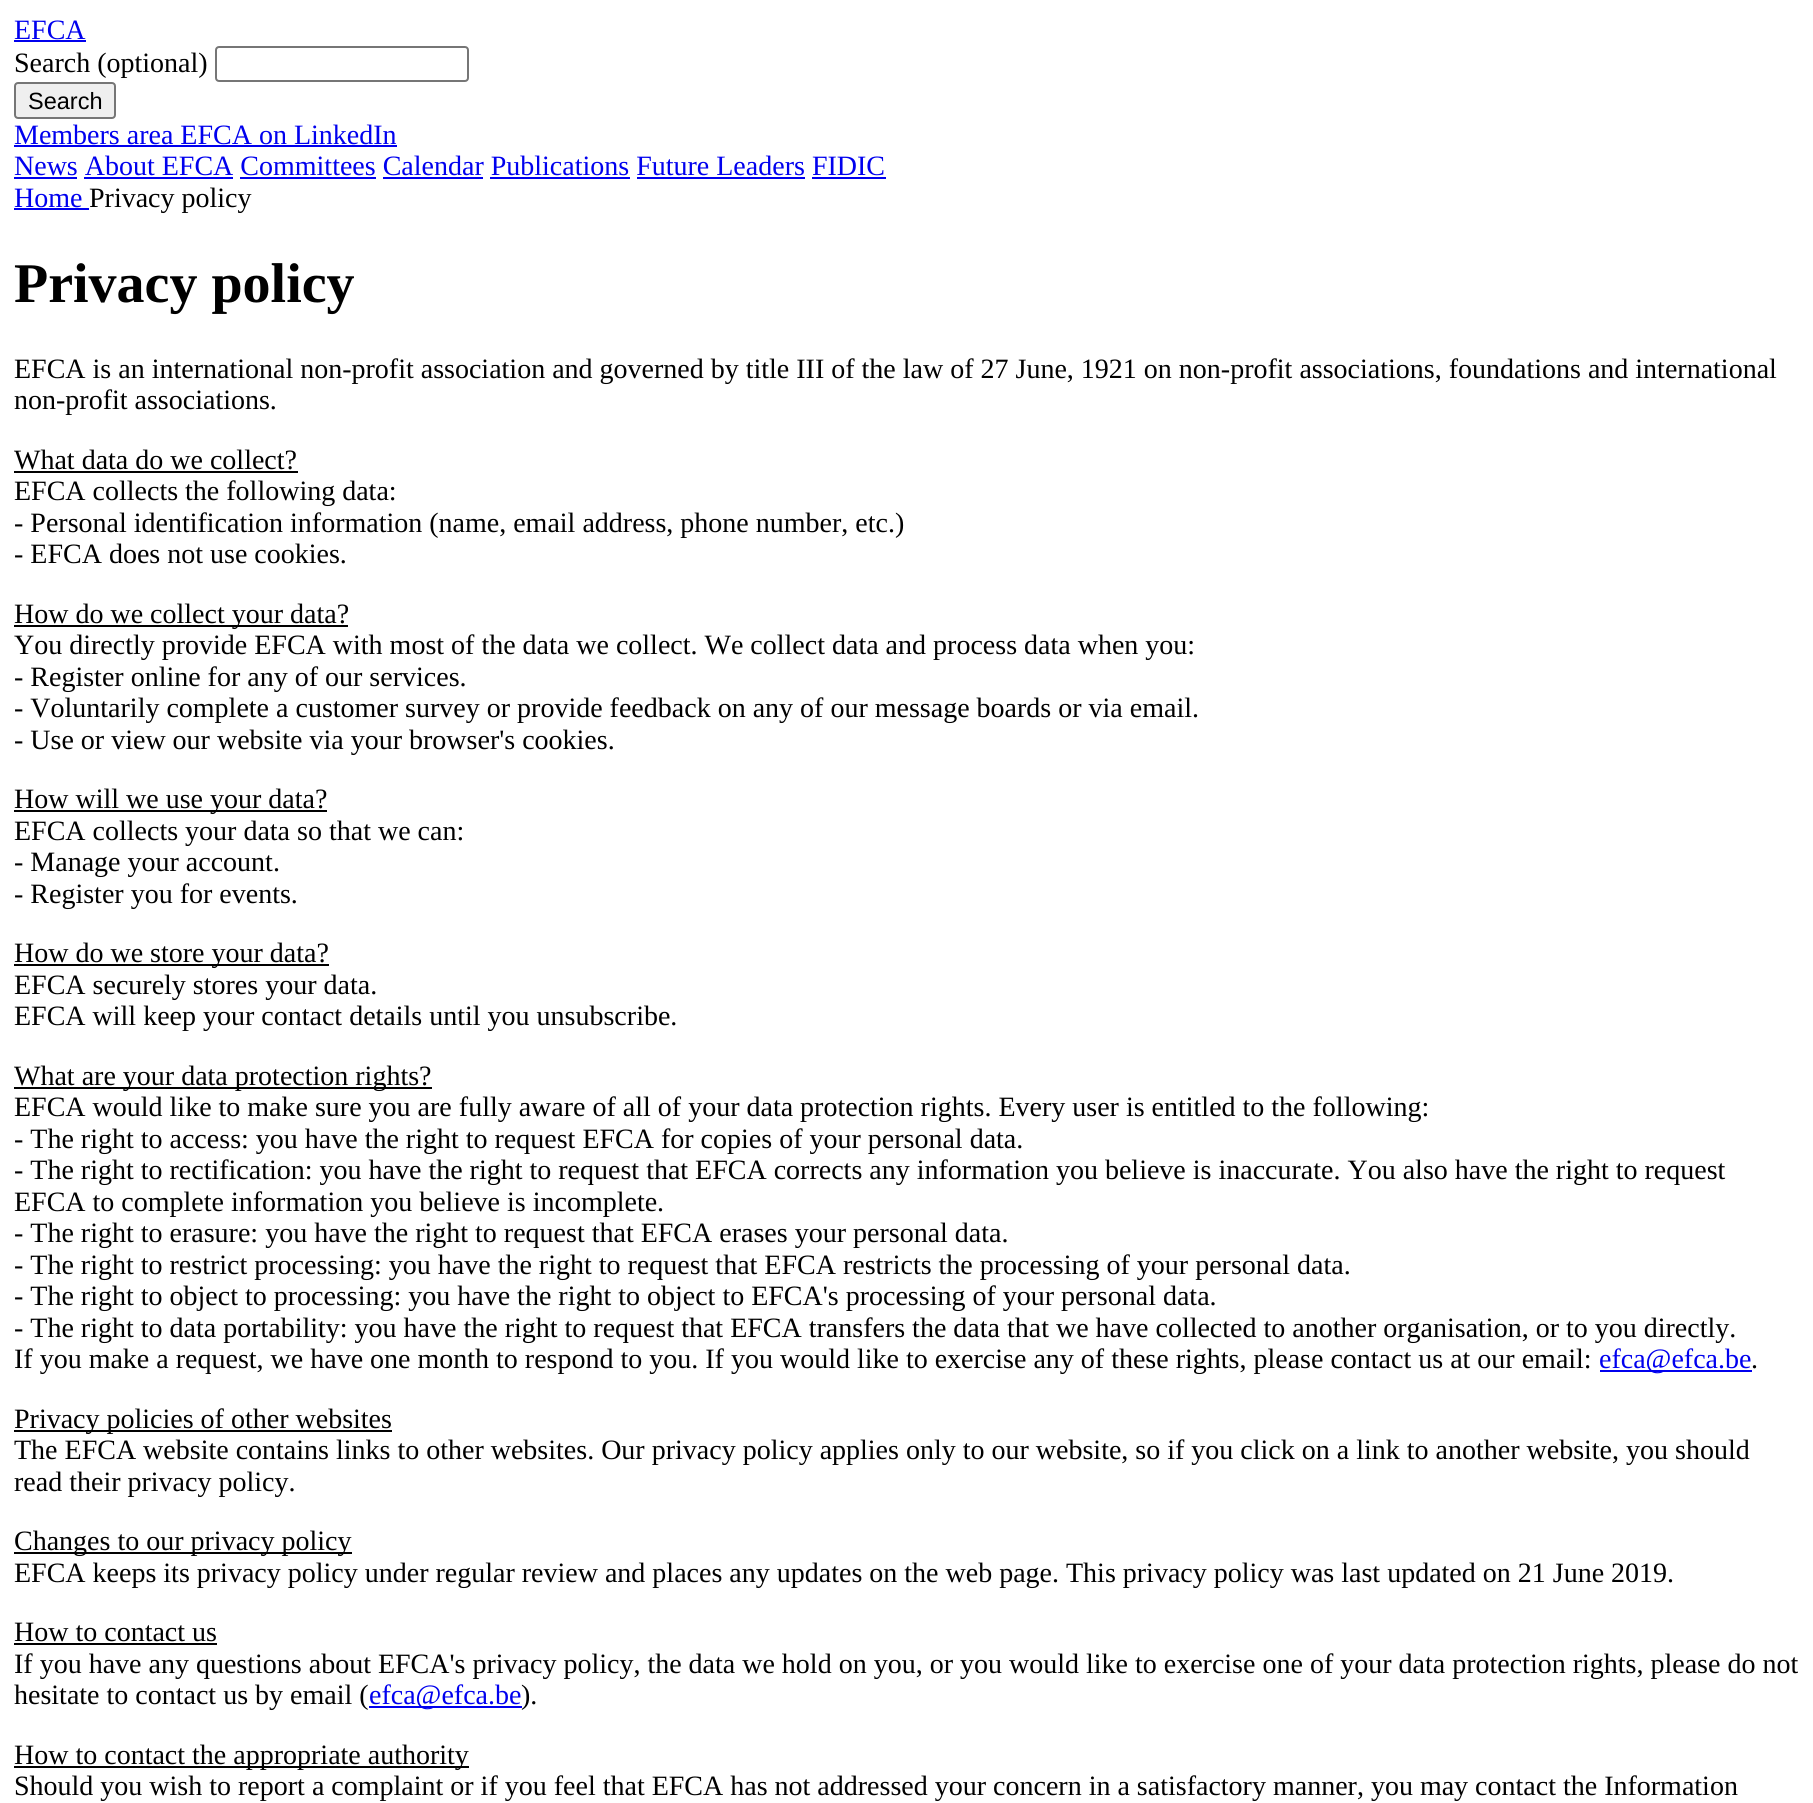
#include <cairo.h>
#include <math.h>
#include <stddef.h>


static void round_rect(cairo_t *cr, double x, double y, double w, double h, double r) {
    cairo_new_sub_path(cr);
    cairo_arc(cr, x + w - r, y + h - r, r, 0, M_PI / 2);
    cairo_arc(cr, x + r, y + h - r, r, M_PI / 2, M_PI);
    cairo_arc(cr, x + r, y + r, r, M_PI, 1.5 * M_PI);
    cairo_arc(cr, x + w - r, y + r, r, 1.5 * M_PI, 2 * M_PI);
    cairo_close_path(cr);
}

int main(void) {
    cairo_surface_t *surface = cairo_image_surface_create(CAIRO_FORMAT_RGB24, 1813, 1803);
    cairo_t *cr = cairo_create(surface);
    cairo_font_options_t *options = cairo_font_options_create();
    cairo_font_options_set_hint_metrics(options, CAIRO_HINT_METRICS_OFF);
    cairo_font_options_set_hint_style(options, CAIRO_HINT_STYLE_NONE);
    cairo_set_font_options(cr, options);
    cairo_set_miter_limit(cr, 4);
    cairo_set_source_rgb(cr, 1, 1, 1);
    cairo_paint(cr);
    cairo_select_font_face(cr, "Liberation Serif", CAIRO_FONT_SLANT_NORMAL, CAIRO_FONT_WEIGHT_NORMAL);
    cairo_set_font_size(cr, 28);
    cairo_set_source_rgb(cr, 0, 0, 0.933);
    cairo_move_to(cr, 14, 39);
    cairo_show_text(cr, "EFCA");
    cairo_rectangle(cr, 14, 40, 72, 2);
    cairo_fill(cr);
    cairo_set_source_rgb(cr, 0, 0, 0);
    cairo_move_to(cr, 14, 72);
    cairo_show_text(cr, "Search (optional)");
    round_rect(cr, 216, 47, 252, 34, 3);
    cairo_set_source_rgb(cr, 0.463, 0.463, 0.463);
    cairo_stroke(cr);
    cairo_set_source_rgb(cr, 0.937, 0.937, 0.937);
    round_rect(cr, 15, 83, 100, 35, 3);
    cairo_fill_preserve(cr);
    cairo_set_source_rgb(cr, 0.463, 0.463, 0.463);
    cairo_stroke(cr);
    cairo_select_font_face(cr, "Liberation Sans", CAIRO_FONT_SLANT_NORMAL, CAIRO_FONT_WEIGHT_NORMAL);
    cairo_set_font_size(cr, 23.5);
    cairo_set_source_rgb(cr, 0, 0, 0);
    cairo_move_to(cr, 28, 109);
    cairo_show_text(cr, "Search");
    cairo_select_font_face(cr, "Liberation Serif", CAIRO_FONT_SLANT_NORMAL, CAIRO_FONT_WEIGHT_NORMAL);
    cairo_set_font_size(cr, 28);
    cairo_set_source_rgb(cr, 0, 0, 0.933);
    cairo_move_to(cr, 14, 144);
    cairo_show_text(cr, "Members area EFCA on LinkedIn");
    cairo_rectangle(cr, 14, 145, 383, 2);
    cairo_fill(cr);
    cairo_move_to(cr, 14, 175);
    cairo_show_text(cr, "News About EFCA Committees Calendar Publications Future Leaders FIDIC");
    cairo_rectangle(cr, 14, 177, 63, 2);
    cairo_fill(cr);
    cairo_rectangle(cr, 84, 177, 149, 2);
    cairo_fill(cr);
    cairo_rectangle(cr, 240, 177, 136, 2);
    cairo_fill(cr);
    cairo_rectangle(cr, 383, 177, 100, 2);
    cairo_fill(cr);
    cairo_rectangle(cr, 490, 177, 140, 2);
    cairo_fill(cr);
    cairo_rectangle(cr, 637, 177, 168, 2);
    cairo_fill(cr);
    cairo_rectangle(cr, 812, 177, 74, 2);
    cairo_fill(cr);
    cairo_move_to(cr, 14, 207);
    cairo_show_text(cr, "Home");
    cairo_rectangle(cr, 14, 208, 75, 2);
    cairo_fill(cr);
    cairo_set_source_rgb(cr, 0, 0, 0);
    cairo_move_to(cr, 89, 207);
    cairo_show_text(cr, "Privacy policy");
    cairo_select_font_face(cr, "Liberation Serif", CAIRO_FONT_SLANT_NORMAL, CAIRO_FONT_WEIGHT_BOLD);
    cairo_set_font_size(cr, 56);
    cairo_move_to(cr, 14, 302);
    cairo_show_text(cr, "Privacy policy");
    cairo_select_font_face(cr, "Liberation Serif", CAIRO_FONT_SLANT_NORMAL, CAIRO_FONT_WEIGHT_NORMAL);
    cairo_set_font_size(cr, 28);
    cairo_move_to(cr, 14, 378);
    cairo_show_text(cr, "EFCA is an international non-profit association and governed by title III of the law of 27 June, 1921 on non-profit associations, foundations and international");
    cairo_move_to(cr, 14, 409);
    cairo_show_text(cr, "non-profit associations.");
    cairo_move_to(cr, 14, 469);
    cairo_show_text(cr, "What data do we collect?");
    cairo_rectangle(cr, 14, 471, 284, 2);
    cairo_fill(cr);
    cairo_move_to(cr, 14, 500);
    cairo_show_text(cr, "EFCA collects the following data:");
    cairo_move_to(cr, 14, 532);
    cairo_show_text(cr, "- Personal identification information (name, email address, phone number, etc.)");
    cairo_move_to(cr, 14, 563);
    cairo_show_text(cr, "- EFCA does not use cookies.");
    cairo_rectangle(cr, 14, 625, 334, 2);
    cairo_fill(cr);
    cairo_move_to(cr, 14, 623);
    cairo_show_text(cr, "How do we collect your data?");
    cairo_move_to(cr, 14, 654);
    cairo_show_text(cr, "You directly provide EFCA with most of the data we collect. We collect data and process data when you:");
    cairo_move_to(cr, 14, 686);
    cairo_show_text(cr, "- Register online for any of our services.");
    cairo_move_to(cr, 14, 717);
    cairo_show_text(cr, "- Voluntarily complete a customer survey or provide feedback on any of our message boards or via email.");
    cairo_move_to(cr, 14, 749);
    cairo_show_text(cr, "- Use or view our website via your browser's cookies.");
    cairo_rectangle(cr, 14, 810, 313, 2);
    cairo_fill(cr);
    cairo_move_to(cr, 14, 808);
    cairo_show_text(cr, "How will we use your data?");
    cairo_move_to(cr, 14, 840);
    cairo_show_text(cr, "EFCA collects your data so that we can:");
    cairo_move_to(cr, 14, 871);
    cairo_show_text(cr, "- Manage your account.");
    cairo_move_to(cr, 14, 903);
    cairo_show_text(cr, "- Register you for events.");
    cairo_rectangle(cr, 14, 964, 315, 2);
    cairo_fill(cr);
    cairo_move_to(cr, 14, 962);
    cairo_show_text(cr, "How do we store your data?");
    cairo_move_to(cr, 14, 994);
    cairo_show_text(cr, "EFCA securely stores your data.");
    cairo_move_to(cr, 14, 1025);
    cairo_show_text(cr, "EFCA will keep your contact details until you unsubscribe.");
    cairo_rectangle(cr, 14, 1087, 418, 2);
    cairo_fill(cr);
    cairo_move_to(cr, 14, 1085);
    cairo_show_text(cr, "What are your data protection rights?");
    cairo_move_to(cr, 14, 1116);
    cairo_show_text(cr, "EFCA would like to make sure you are fully aware of all of your data protection rights. Every user is entitled to the following:");
    cairo_move_to(cr, 14, 1148);
    cairo_show_text(cr, "- The right to access: you have the right to request EFCA for copies of your personal data.");
    cairo_move_to(cr, 14, 1179);
    cairo_show_text(cr, "- The right to rectification: you have the right to request that EFCA corrects any information you believe is inaccurate. You also have the right to request");
    cairo_move_to(cr, 14, 1211);
    cairo_show_text(cr, "EFCA to complete information you believe is incomplete.");
    cairo_move_to(cr, 14, 1242);
    cairo_show_text(cr, "- The right to erasure: you have the right to request that EFCA erases your personal data.");
    cairo_move_to(cr, 14, 1274);
    cairo_show_text(cr, "- The right to restrict processing: you have the right to request that EFCA restricts the processing of your personal data.");
    cairo_move_to(cr, 14, 1305);
    cairo_show_text(cr, "- The right to object to processing: you have the right to object to EFCA's processing of your personal data.");
    cairo_move_to(cr, 14, 1337);
    cairo_show_text(cr, "- The right to data portability: you have the right to request that EFCA transfers the data that we have collected to another organisation, or to you directly.");
    cairo_move_to(cr, 14, 1368);
    cairo_show_text(cr, "If you make a request, we have one month to respond to you. If you would like to exercise any of these rights, please contact us at our email:");
    cairo_set_source_rgb(cr, 0, 0, 0.933);
    cairo_rectangle(cr, 1600, 1370, 152, 2);
    cairo_fill(cr);
    cairo_move_to(cr, 1599, 1368);
    cairo_show_text(cr, "efca@efca.be");
    cairo_set_source_rgb(cr, 0, 0, 0);
    cairo_move_to(cr, 1751, 1368);
    cairo_show_text(cr, ".");
    cairo_rectangle(cr, 14, 1430, 378, 2);
    cairo_fill(cr);
    cairo_move_to(cr, 14, 1428);
    cairo_show_text(cr, "Privacy policies of other websites");
    cairo_move_to(cr, 14, 1459);
    cairo_show_text(cr, "The EFCA website contains links to other websites. Our privacy policy applies only to our website, so if you click on a link to another website, you should");
    cairo_move_to(cr, 14, 1491);
    cairo_show_text(cr, "read their privacy policy.");
    cairo_rectangle(cr, 14, 1552, 338, 2);
    cairo_fill(cr);
    cairo_move_to(cr, 14, 1550);
    cairo_show_text(cr, "Changes to our privacy policy");
    cairo_move_to(cr, 14, 1582);
    cairo_show_text(cr, "EFCA keeps its privacy policy under regular review and places any updates on the web page. This privacy policy was last updated on 21 June 2019.");
    cairo_move_to(cr, 14, 1641);
    cairo_show_text(cr, "How to contact us");
    cairo_rectangle(cr, 14, 1643, 203, 2);
    cairo_fill(cr);
    cairo_move_to(cr, 14, 1673);
    cairo_show_text(cr, "If you have any questions about EFCA's privacy policy, the data we hold on you, or you would like to exercise one of your data protection rights, please do not");
    cairo_move_to(cr, 14, 1704);
    cairo_show_text(cr, "hesitate to contact us by email (");
    cairo_set_source_rgb(cr, 0, 0, 0.933);
    cairo_rectangle(cr, 369, 1706, 153, 2);
    cairo_fill(cr);
    cairo_move_to(cr, 369, 1704);
    cairo_show_text(cr, "efca@efca.be");
    cairo_set_source_rgb(cr, 0, 0, 0);
    cairo_move_to(cr, 521, 1704);
    cairo_show_text(cr, ").");
    cairo_rectangle(cr, 14, 1766, 455, 2);
    cairo_fill(cr);
    cairo_move_to(cr, 14, 1764);
    cairo_show_text(cr, "How to contact the appropriate authority");
    cairo_move_to(cr, 14, 1795);
    cairo_show_text(cr, "Should you wish to report a complaint or if you feel that EFCA has not addressed your concern in a satisfactory manner, you may contact the Information");
    cairo_surface_write_to_png(surface, "page.png");
    cairo_font_options_destroy(options);
    cairo_destroy(cr);
    cairo_surface_destroy(surface);
    return 0;
}
